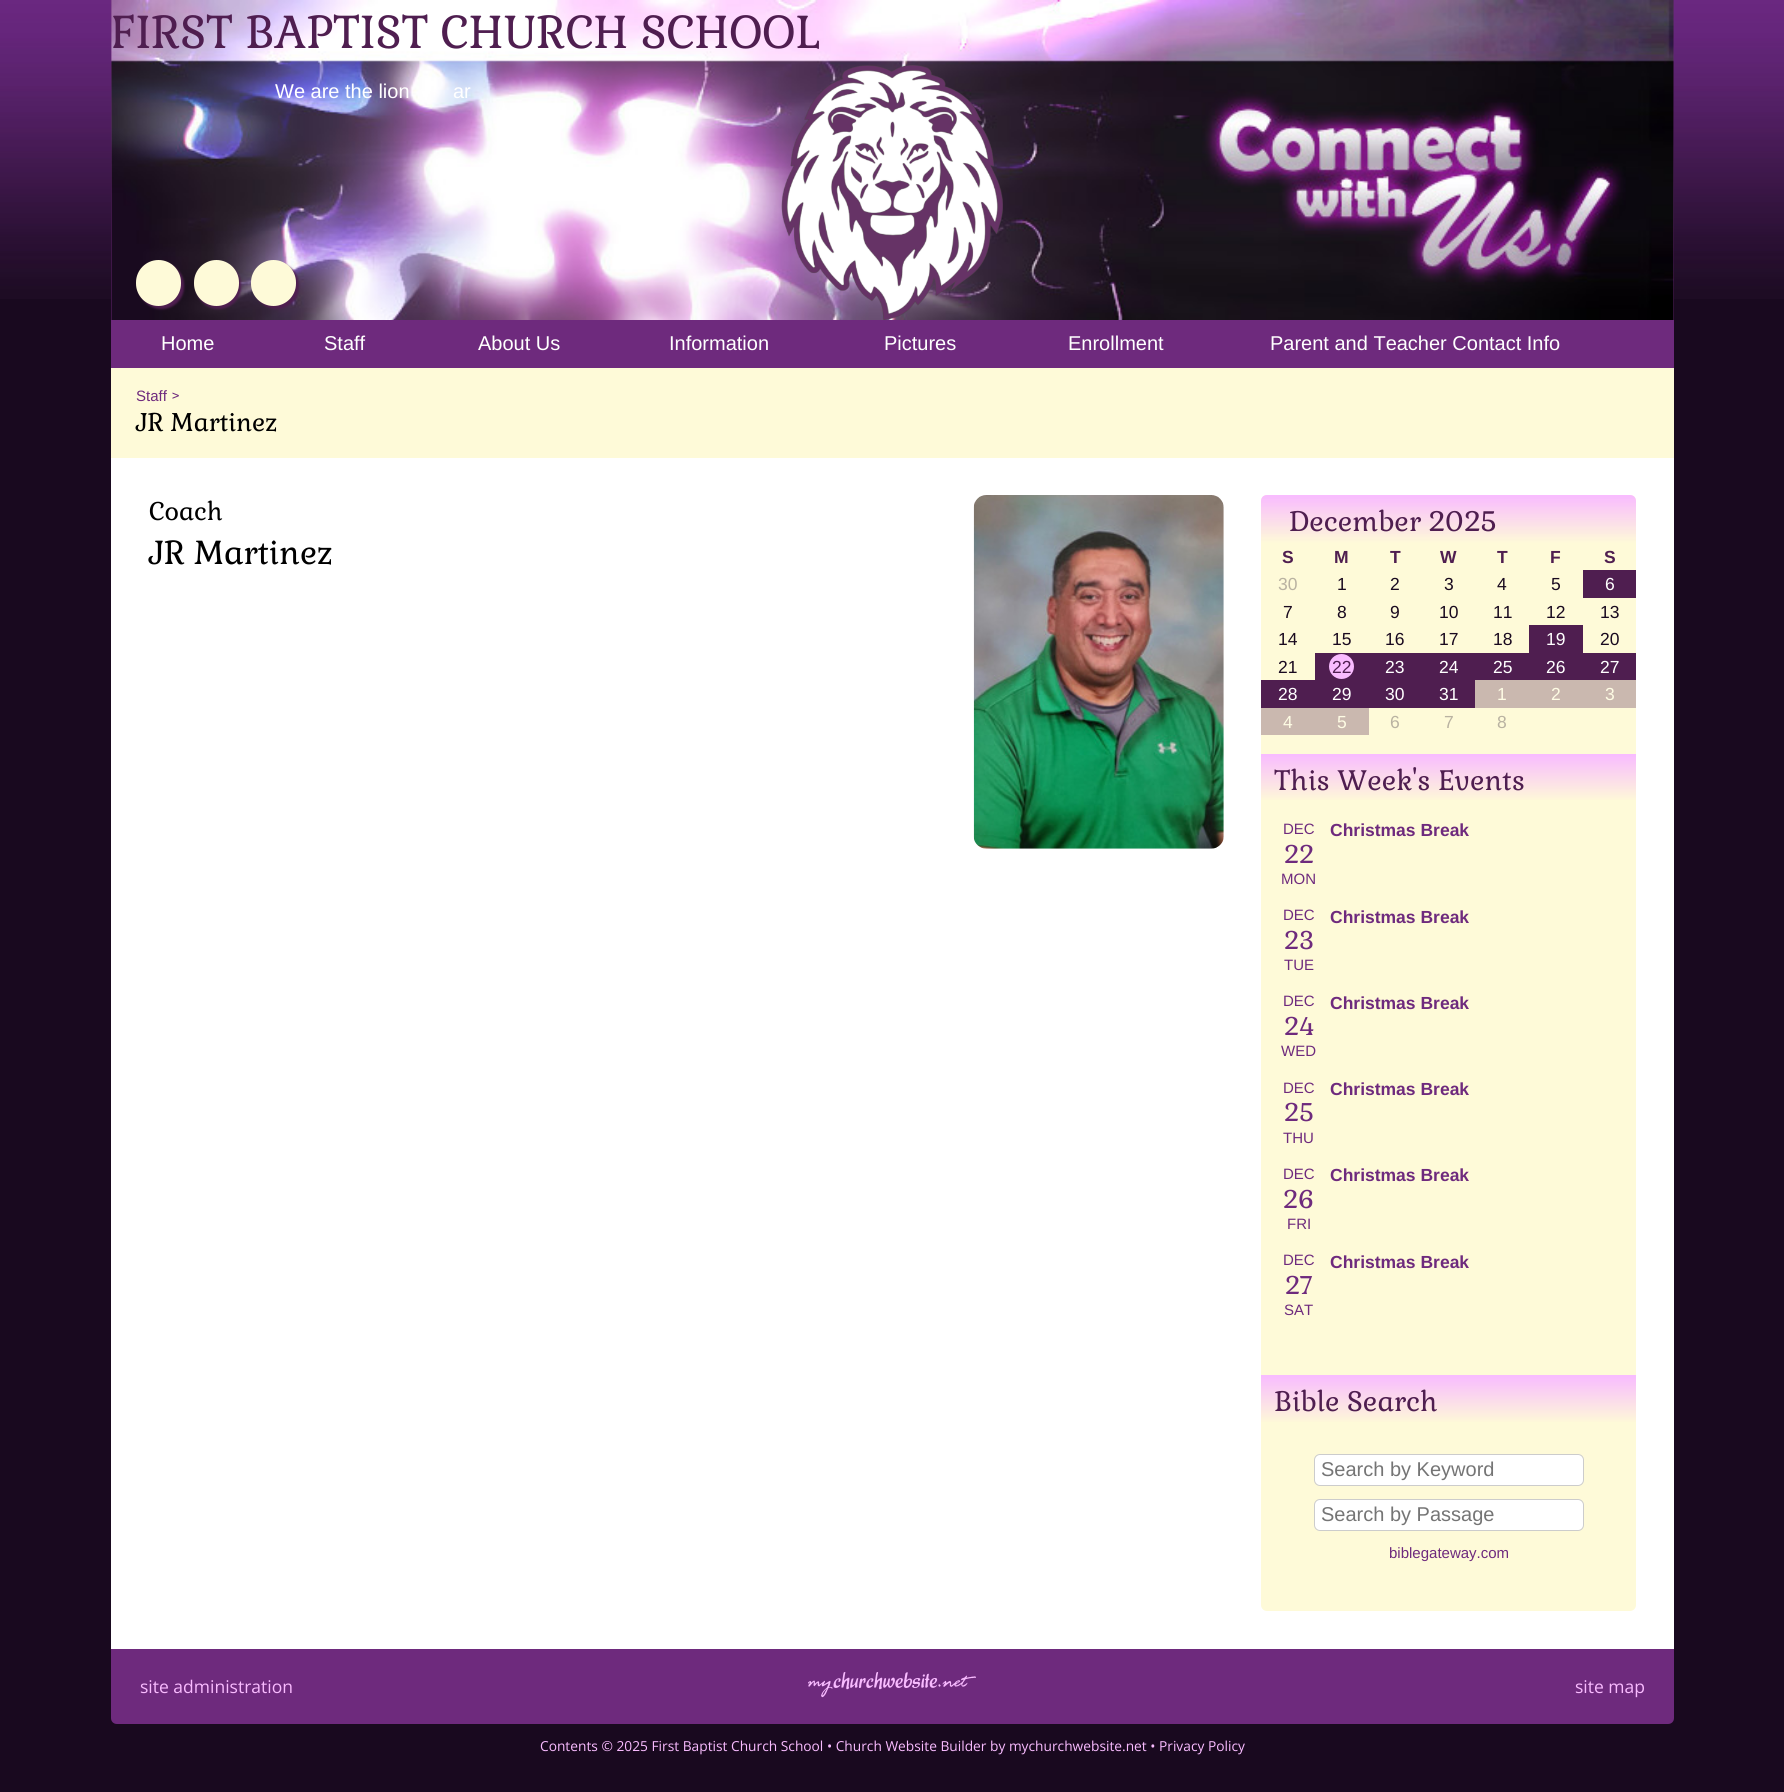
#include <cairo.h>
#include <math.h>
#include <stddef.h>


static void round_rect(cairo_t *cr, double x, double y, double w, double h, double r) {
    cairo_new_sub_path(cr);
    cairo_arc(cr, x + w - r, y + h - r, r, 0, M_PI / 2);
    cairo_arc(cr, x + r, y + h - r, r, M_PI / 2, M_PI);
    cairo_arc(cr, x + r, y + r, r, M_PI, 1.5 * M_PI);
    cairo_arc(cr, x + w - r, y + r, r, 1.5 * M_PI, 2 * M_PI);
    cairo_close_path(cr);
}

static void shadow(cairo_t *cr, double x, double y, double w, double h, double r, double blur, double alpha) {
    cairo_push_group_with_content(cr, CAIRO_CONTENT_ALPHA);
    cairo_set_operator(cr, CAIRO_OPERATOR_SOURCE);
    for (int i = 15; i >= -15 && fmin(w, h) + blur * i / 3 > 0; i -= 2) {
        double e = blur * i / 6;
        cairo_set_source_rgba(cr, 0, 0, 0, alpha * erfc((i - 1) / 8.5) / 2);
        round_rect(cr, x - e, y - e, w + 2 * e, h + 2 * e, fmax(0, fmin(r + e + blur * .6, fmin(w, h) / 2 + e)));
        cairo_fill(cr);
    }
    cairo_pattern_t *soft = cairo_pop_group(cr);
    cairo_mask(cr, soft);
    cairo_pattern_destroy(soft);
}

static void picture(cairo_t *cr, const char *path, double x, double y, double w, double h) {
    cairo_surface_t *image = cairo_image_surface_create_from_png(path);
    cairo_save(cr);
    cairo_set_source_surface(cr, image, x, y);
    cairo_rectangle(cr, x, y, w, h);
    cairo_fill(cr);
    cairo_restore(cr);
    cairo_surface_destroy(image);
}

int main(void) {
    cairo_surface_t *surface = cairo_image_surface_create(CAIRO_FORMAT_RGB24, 1784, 1792);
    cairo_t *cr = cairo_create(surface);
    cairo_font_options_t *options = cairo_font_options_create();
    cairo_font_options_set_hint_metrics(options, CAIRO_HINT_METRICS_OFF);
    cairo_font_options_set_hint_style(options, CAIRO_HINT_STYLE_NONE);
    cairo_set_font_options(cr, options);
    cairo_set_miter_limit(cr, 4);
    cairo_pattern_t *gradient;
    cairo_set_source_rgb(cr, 0.098, 0.039, 0.122);
    cairo_paint(cr);
    picture(cr, "img1.png", 0, 0, 1784, 299);
    cairo_set_source_rgb(cr, 0.431, 0.165, 0.49);
    cairo_rectangle(cr, 111, 0, 1563, 368);
    cairo_fill(cr);
    picture(cr, "img2.png", 111, 0, 1563, 320);
    cairo_select_font_face(cr, "Gabriela", CAIRO_FONT_SLANT_NORMAL, CAIRO_FONT_WEIGHT_NORMAL);
    cairo_set_font_size(cr, 45);
    cairo_set_source_rgb(cr, 0.31, 0.118, 0.314);
    cairo_move_to(cr, 111, 48);
    cairo_show_text(cr, "FIRST BAPTIST CHURCH SCHOOL");
    cairo_select_font_face(cr, "Liberation Sans", CAIRO_FONT_SLANT_NORMAL, CAIRO_FONT_WEIGHT_NORMAL);
    cairo_set_font_size(cr, 20);
    cairo_set_source_rgb(cr, 1, 1, 1);
    cairo_move_to(cr, 275, 98);
    cairo_show_text(cr, "We are the lion");
    cairo_move_to(cr, 453, 98);
    cairo_show_text(cr, "ar");
    picture(cr, "img3.png", 781, 65, 222, 255);
    cairo_set_source_rgb(cr, 0.31, 0.118, 0.314);
    shadow(cr, 139, 263, 45, 46, 22.5, 1, 1);
    cairo_set_source_rgb(cr, 0.996, 0.98, 0.847);
    round_rect(cr, 136, 260, 45, 46, 22.5);
    cairo_fill(cr);
    cairo_set_source_rgb(cr, 0.31, 0.118, 0.314);
    shadow(cr, 196, 263, 45, 46, 22.5, 1, 1);
    cairo_set_source_rgb(cr, 0.996, 0.98, 0.847);
    round_rect(cr, 194, 260, 45, 46, 22.5);
    cairo_fill(cr);
    cairo_set_source_rgb(cr, 0.31, 0.118, 0.314);
    shadow(cr, 254, 263, 45, 46, 22.5, 1, 1);
    cairo_set_source_rgb(cr, 0.996, 0.98, 0.847);
    round_rect(cr, 251, 260, 45, 46, 22.5);
    cairo_fill(cr);
    cairo_set_source_rgb(cr, 1, 1, 1);
    cairo_move_to(cr, 161, 350);
    cairo_show_text(cr, "Home");
    cairo_move_to(cr, 324, 350);
    cairo_show_text(cr, "Staff");
    cairo_move_to(cr, 478, 350);
    cairo_show_text(cr, "About Us");
    cairo_move_to(cr, 669, 350);
    cairo_show_text(cr, "Information");
    cairo_move_to(cr, 884, 350);
    cairo_show_text(cr, "Pictures");
    cairo_move_to(cr, 1068, 350);
    cairo_show_text(cr, "Enrollment");
    cairo_move_to(cr, 1270, 350);
    cairo_show_text(cr, "Parent and Teacher Contact Info");
    cairo_rectangle(cr, 111, 458, 1563, 1191);
    cairo_fill(cr);
    cairo_set_source_rgb(cr, 0.996, 0.98, 0.847);
    cairo_rectangle(cr, 111, 368, 1563, 90);
    cairo_fill(cr);
    cairo_set_font_size(cr, 15);
    cairo_set_source_rgb(cr, 0.431, 0.165, 0.49);
    cairo_move_to(cr, 136, 401);
    cairo_show_text(cr, "Staff");
    cairo_select_font_face(cr, "Gabriela", CAIRO_FONT_SLANT_NORMAL, CAIRO_FONT_WEIGHT_NORMAL);
    cairo_move_to(cr, 171, 401);
    cairo_show_text(cr, ">");
    cairo_set_font_size(cr, 25);
    cairo_set_source_rgb(cr, 0, 0, 0);
    cairo_move_to(cr, 136, 431);
    cairo_show_text(cr, "JR Martinez");
    cairo_move_to(cr, 149, 520);
    cairo_show_text(cr, "Coach");
    cairo_set_font_size(cr, 32.5);
    cairo_move_to(cr, 149, 564);
    cairo_show_text(cr, "JR Martinez");
    picture(cr, "img4.png", 973, 495, 251, 354);
    cairo_set_source_rgb(cr, 0.996, 0.98, 0.847);
    round_rect(cr, 1261, 495, 375, 1116, 6);
    cairo_fill(cr);
    gradient = cairo_pattern_create_linear(1449, 495, 1449, 543);
    cairo_pattern_add_color_stop_rgba(gradient, 0, 0.973, 0.733, 1, 1);
    cairo_pattern_add_color_stop_rgba(gradient, 1, 0.973, 0.733, 1, 0.01);
    cairo_set_source(cr, gradient);
    cairo_pattern_destroy(gradient);
    cairo_new_path(cr);
    cairo_move_to(cr, 1267, 495);
    cairo_line_to(cr, 1630, 495);
    cairo_curve_to(cr, 1633.5, 495, 1636, 497.5, 1636, 501);
    cairo_line_to(cr, 1636, 543);
    cairo_line_to(cr, 1261, 543);
    cairo_line_to(cr, 1261, 501);
    cairo_curve_to(cr, 1261, 497.5, 1263.5, 495, 1267, 495);
    cairo_close_path(cr);
    cairo_fill(cr);
    cairo_set_font_size(cr, 27.5);
    cairo_set_source_rgb(cr, 0.31, 0.118, 0.314);
    cairo_move_to(cr, 1289, 531);
    cairo_show_text(cr, "December 2025");
    cairo_select_font_face(cr, "Liberation Sans", CAIRO_FONT_SLANT_NORMAL, CAIRO_FONT_WEIGHT_BOLD);
    cairo_set_font_size(cr, 17.5);
    cairo_move_to(cr, 1282, 563);
    cairo_show_text(cr, "S");
    cairo_move_to(cr, 1334, 563);
    cairo_show_text(cr, "M");
    cairo_move_to(cr, 1390, 563);
    cairo_show_text(cr, "T");
    cairo_move_to(cr, 1440, 563);
    cairo_show_text(cr, "W");
    cairo_move_to(cr, 1497, 563);
    cairo_show_text(cr, "T");
    cairo_move_to(cr, 1550, 563);
    cairo_show_text(cr, "F");
    cairo_move_to(cr, 1604, 563);
    cairo_show_text(cr, "S");
    cairo_select_font_face(cr, "Liberation Sans", CAIRO_FONT_SLANT_NORMAL, CAIRO_FONT_WEIGHT_NORMAL);
    cairo_set_source_rgb(cr, 0.725, 0.698, 0.631);
    cairo_move_to(cr, 1278, 590);
    cairo_show_text(cr, "30");
    cairo_set_source_rgb(cr, 0.098, 0.039, 0.122);
    cairo_move_to(cr, 1337, 590);
    cairo_show_text(cr, "1");
    cairo_move_to(cr, 1390, 590);
    cairo_show_text(cr, "2");
    cairo_move_to(cr, 1444, 590);
    cairo_show_text(cr, "3");
    cairo_move_to(cr, 1497, 590);
    cairo_show_text(cr, "4");
    cairo_move_to(cr, 1551, 590);
    cairo_show_text(cr, "5");
    cairo_set_source_rgb(cr, 0.31, 0.118, 0.314);
    cairo_rectangle(cr, 1583, 570, 53, 28);
    cairo_fill(cr);
    cairo_set_source_rgb(cr, 1, 1, 1);
    cairo_move_to(cr, 1605, 590);
    cairo_show_text(cr, "6");
    cairo_set_source_rgb(cr, 0.098, 0.039, 0.122);
    cairo_move_to(cr, 1283, 618);
    cairo_show_text(cr, "7");
    cairo_move_to(cr, 1337, 618);
    cairo_show_text(cr, "8");
    cairo_move_to(cr, 1390, 618);
    cairo_show_text(cr, "9");
    cairo_move_to(cr, 1439, 618);
    cairo_show_text(cr, "10");
    cairo_move_to(cr, 1493, 618);
    cairo_show_text(cr, "11");
    cairo_move_to(cr, 1546, 618);
    cairo_show_text(cr, "12");
    cairo_move_to(cr, 1600, 618);
    cairo_show_text(cr, "13");
    cairo_move_to(cr, 1278, 645);
    cairo_show_text(cr, "14");
    cairo_move_to(cr, 1332, 645);
    cairo_show_text(cr, "15");
    cairo_move_to(cr, 1385, 645);
    cairo_show_text(cr, "16");
    cairo_move_to(cr, 1439, 645);
    cairo_show_text(cr, "17");
    cairo_move_to(cr, 1493, 645);
    cairo_show_text(cr, "18");
    cairo_set_source_rgb(cr, 0.31, 0.118, 0.314);
    cairo_rectangle(cr, 1529, 625, 54, 28);
    cairo_fill(cr);
    cairo_set_source_rgb(cr, 1, 1, 1);
    cairo_move_to(cr, 1546, 645);
    cairo_show_text(cr, "19");
    cairo_set_source_rgb(cr, 0.098, 0.039, 0.122);
    cairo_move_to(cr, 1600, 645);
    cairo_show_text(cr, "20");
    cairo_move_to(cr, 1278, 673);
    cairo_show_text(cr, "21");
    cairo_set_source_rgb(cr, 0.31, 0.118, 0.314);
    cairo_rectangle(cr, 1315, 653, 321, 27);
    cairo_fill(cr);
    cairo_set_source_rgb(cr, 0.973, 0.733, 1);
    cairo_arc(cr, 1341.5, 666.5, 12.5, 0, 2 * M_PI);
    cairo_fill(cr);
    cairo_set_source_rgb(cr, 0.31, 0.118, 0.314);
    cairo_move_to(cr, 1332, 673);
    cairo_show_text(cr, "22");
    cairo_set_source_rgb(cr, 1, 1, 1);
    cairo_move_to(cr, 1385, 673);
    cairo_show_text(cr, "23");
    cairo_move_to(cr, 1439, 673);
    cairo_show_text(cr, "24");
    cairo_move_to(cr, 1493, 673);
    cairo_show_text(cr, "25");
    cairo_move_to(cr, 1546, 673);
    cairo_show_text(cr, "26");
    cairo_move_to(cr, 1600, 673);
    cairo_show_text(cr, "27");
    cairo_set_source_rgb(cr, 0.31, 0.118, 0.314);
    cairo_rectangle(cr, 1261, 680, 214, 28);
    cairo_fill(cr);
    cairo_set_source_rgb(cr, 1, 1, 1);
    cairo_move_to(cr, 1278, 700);
    cairo_show_text(cr, "28");
    cairo_move_to(cr, 1332, 700);
    cairo_show_text(cr, "29");
    cairo_move_to(cr, 1385, 700);
    cairo_show_text(cr, "30");
    cairo_move_to(cr, 1439, 700);
    cairo_show_text(cr, "31");
    cairo_set_source_rgb(cr, 0.792, 0.722, 0.686);
    cairo_rectangle(cr, 1475, 680, 161, 28);
    cairo_fill(cr);
    cairo_set_source_rgb(cr, 0.996, 0.988, 0.894);
    cairo_move_to(cr, 1497, 700);
    cairo_show_text(cr, "1");
    cairo_move_to(cr, 1551, 700);
    cairo_show_text(cr, "2");
    cairo_move_to(cr, 1605, 700);
    cairo_show_text(cr, "3");
    cairo_set_source_rgb(cr, 0.792, 0.722, 0.686);
    cairo_rectangle(cr, 1261, 708, 108, 27);
    cairo_fill(cr);
    cairo_set_source_rgb(cr, 0.996, 0.988, 0.894);
    cairo_move_to(cr, 1283, 728);
    cairo_show_text(cr, "4");
    cairo_move_to(cr, 1337, 728);
    cairo_show_text(cr, "5");
    cairo_set_source_rgb(cr, 0.725, 0.698, 0.631);
    cairo_move_to(cr, 1390, 728);
    cairo_show_text(cr, "6");
    cairo_move_to(cr, 1444, 728);
    cairo_show_text(cr, "7");
    cairo_move_to(cr, 1497, 728);
    cairo_show_text(cr, "8");
    gradient = cairo_pattern_create_linear(1449, 754, 1449, 801);
    cairo_pattern_add_color_stop_rgba(gradient, 0, 0.973, 0.733, 1, 1);
    cairo_pattern_add_color_stop_rgba(gradient, 1, 0.996, 0.976, 0.847, 1);
    cairo_set_source(cr, gradient);
    cairo_pattern_destroy(gradient);
    cairo_rectangle(cr, 1261, 754, 375, 46);
    cairo_fill(cr);
    cairo_select_font_face(cr, "Gabriela", CAIRO_FONT_SLANT_NORMAL, CAIRO_FONT_WEIGHT_NORMAL);
    cairo_set_font_size(cr, 27.5);
    cairo_set_source_rgb(cr, 0.31, 0.118, 0.314);
    cairo_move_to(cr, 1274, 790);
    cairo_show_text(cr, "This Week's Events");
    cairo_select_font_face(cr, "Liberation Sans", CAIRO_FONT_SLANT_NORMAL, CAIRO_FONT_WEIGHT_NORMAL);
    cairo_set_font_size(cr, 15);
    cairo_set_source_rgb(cr, 0.431, 0.165, 0.49);
    cairo_move_to(cr, 1283, 834);
    cairo_show_text(cr, "DEC");
    cairo_select_font_face(cr, "Gabriela", CAIRO_FONT_SLANT_NORMAL, CAIRO_FONT_WEIGHT_NORMAL);
    cairo_set_font_size(cr, 25);
    cairo_move_to(cr, 1284, 863);
    cairo_show_text(cr, "22");
    cairo_select_font_face(cr, "Liberation Sans", CAIRO_FONT_SLANT_NORMAL, CAIRO_FONT_WEIGHT_NORMAL);
    cairo_set_font_size(cr, 15);
    cairo_move_to(cr, 1281, 884);
    cairo_show_text(cr, "MON");
    cairo_select_font_face(cr, "Liberation Sans", CAIRO_FONT_SLANT_NORMAL, CAIRO_FONT_WEIGHT_BOLD);
    cairo_set_font_size(cr, 17.5);
    cairo_move_to(cr, 1330, 836);
    cairo_show_text(cr, "Christmas Break");
    cairo_select_font_face(cr, "Liberation Sans", CAIRO_FONT_SLANT_NORMAL, CAIRO_FONT_WEIGHT_NORMAL);
    cairo_set_font_size(cr, 15);
    cairo_move_to(cr, 1283, 920);
    cairo_show_text(cr, "DEC");
    cairo_select_font_face(cr, "Gabriela", CAIRO_FONT_SLANT_NORMAL, CAIRO_FONT_WEIGHT_NORMAL);
    cairo_set_font_size(cr, 25);
    cairo_move_to(cr, 1284, 949);
    cairo_show_text(cr, "23");
    cairo_select_font_face(cr, "Liberation Sans", CAIRO_FONT_SLANT_NORMAL, CAIRO_FONT_WEIGHT_NORMAL);
    cairo_set_font_size(cr, 15);
    cairo_move_to(cr, 1284, 970);
    cairo_show_text(cr, "TUE");
    cairo_select_font_face(cr, "Liberation Sans", CAIRO_FONT_SLANT_NORMAL, CAIRO_FONT_WEIGHT_BOLD);
    cairo_set_font_size(cr, 17.5);
    cairo_move_to(cr, 1330, 923);
    cairo_show_text(cr, "Christmas Break");
    cairo_select_font_face(cr, "Liberation Sans", CAIRO_FONT_SLANT_NORMAL, CAIRO_FONT_WEIGHT_NORMAL);
    cairo_set_font_size(cr, 15);
    cairo_move_to(cr, 1283, 1006);
    cairo_show_text(cr, "DEC");
    cairo_select_font_face(cr, "Gabriela", CAIRO_FONT_SLANT_NORMAL, CAIRO_FONT_WEIGHT_NORMAL);
    cairo_set_font_size(cr, 25);
    cairo_move_to(cr, 1284, 1035);
    cairo_show_text(cr, "24");
    cairo_select_font_face(cr, "Liberation Sans", CAIRO_FONT_SLANT_NORMAL, CAIRO_FONT_WEIGHT_NORMAL);
    cairo_set_font_size(cr, 15);
    cairo_move_to(cr, 1281, 1056);
    cairo_show_text(cr, "WED");
    cairo_select_font_face(cr, "Liberation Sans", CAIRO_FONT_SLANT_NORMAL, CAIRO_FONT_WEIGHT_BOLD);
    cairo_set_font_size(cr, 17.5);
    cairo_move_to(cr, 1330, 1009);
    cairo_show_text(cr, "Christmas Break");
    cairo_select_font_face(cr, "Liberation Sans", CAIRO_FONT_SLANT_NORMAL, CAIRO_FONT_WEIGHT_NORMAL);
    cairo_set_font_size(cr, 15);
    cairo_move_to(cr, 1283, 1093);
    cairo_show_text(cr, "DEC");
    cairo_select_font_face(cr, "Gabriela", CAIRO_FONT_SLANT_NORMAL, CAIRO_FONT_WEIGHT_NORMAL);
    cairo_set_font_size(cr, 25);
    cairo_move_to(cr, 1284, 1121);
    cairo_show_text(cr, "25");
    cairo_select_font_face(cr, "Liberation Sans", CAIRO_FONT_SLANT_NORMAL, CAIRO_FONT_WEIGHT_NORMAL);
    cairo_set_font_size(cr, 15);
    cairo_move_to(cr, 1283, 1143);
    cairo_show_text(cr, "THU");
    cairo_select_font_face(cr, "Liberation Sans", CAIRO_FONT_SLANT_NORMAL, CAIRO_FONT_WEIGHT_BOLD);
    cairo_set_font_size(cr, 17.5);
    cairo_move_to(cr, 1330, 1095);
    cairo_show_text(cr, "Christmas Break");
    cairo_select_font_face(cr, "Liberation Sans", CAIRO_FONT_SLANT_NORMAL, CAIRO_FONT_WEIGHT_NORMAL);
    cairo_set_font_size(cr, 15);
    cairo_move_to(cr, 1283, 1179);
    cairo_show_text(cr, "DEC");
    cairo_select_font_face(cr, "Gabriela", CAIRO_FONT_SLANT_NORMAL, CAIRO_FONT_WEIGHT_NORMAL);
    cairo_set_font_size(cr, 25);
    cairo_move_to(cr, 1283, 1208);
    cairo_show_text(cr, "26");
    cairo_select_font_face(cr, "Liberation Sans", CAIRO_FONT_SLANT_NORMAL, CAIRO_FONT_WEIGHT_NORMAL);
    cairo_set_font_size(cr, 15);
    cairo_move_to(cr, 1287, 1229);
    cairo_show_text(cr, "FRI");
    cairo_select_font_face(cr, "Liberation Sans", CAIRO_FONT_SLANT_NORMAL, CAIRO_FONT_WEIGHT_BOLD);
    cairo_set_font_size(cr, 17.5);
    cairo_move_to(cr, 1330, 1181);
    cairo_show_text(cr, "Christmas Break");
    cairo_select_font_face(cr, "Liberation Sans", CAIRO_FONT_SLANT_NORMAL, CAIRO_FONT_WEIGHT_NORMAL);
    cairo_set_font_size(cr, 15);
    cairo_move_to(cr, 1283, 1265);
    cairo_show_text(cr, "DEC");
    cairo_select_font_face(cr, "Gabriela", CAIRO_FONT_SLANT_NORMAL, CAIRO_FONT_WEIGHT_NORMAL);
    cairo_set_font_size(cr, 25);
    cairo_move_to(cr, 1285, 1294);
    cairo_show_text(cr, "27");
    cairo_select_font_face(cr, "Liberation Sans", CAIRO_FONT_SLANT_NORMAL, CAIRO_FONT_WEIGHT_NORMAL);
    cairo_set_font_size(cr, 15);
    cairo_move_to(cr, 1284, 1315);
    cairo_show_text(cr, "SAT");
    cairo_select_font_face(cr, "Liberation Sans", CAIRO_FONT_SLANT_NORMAL, CAIRO_FONT_WEIGHT_BOLD);
    cairo_set_font_size(cr, 17.5);
    cairo_move_to(cr, 1330, 1268);
    cairo_show_text(cr, "Christmas Break");
    gradient = cairo_pattern_create_linear(1449, 1375, 1449, 1423);
    cairo_pattern_add_color_stop_rgba(gradient, 0, 0.973, 0.733, 1, 1);
    cairo_pattern_add_color_stop_rgba(gradient, 1, 0.996, 0.976, 0.847, 1);
    cairo_set_source(cr, gradient);
    cairo_pattern_destroy(gradient);
    cairo_rectangle(cr, 1261, 1375, 375, 47);
    cairo_fill(cr);
    cairo_select_font_face(cr, "Gabriela", CAIRO_FONT_SLANT_NORMAL, CAIRO_FONT_WEIGHT_NORMAL);
    cairo_set_font_size(cr, 27.5);
    cairo_set_source_rgb(cr, 0.31, 0.118, 0.314);
    cairo_move_to(cr, 1274, 1411);
    cairo_show_text(cr, "Bible Search");
    cairo_set_source_rgb(cr, 1, 1, 1);
    round_rect(cr, 1314.5, 1454.5, 269, 31, 5.5);
    cairo_fill_preserve(cr);
    cairo_set_source_rgb(cr, 0.8, 0.8, 0.8);
    cairo_set_line_width(cr, 1);
    cairo_stroke(cr);
    cairo_select_font_face(cr, "Liberation Sans", CAIRO_FONT_SLANT_NORMAL, CAIRO_FONT_WEIGHT_NORMAL);
    cairo_set_font_size(cr, 20);
    cairo_set_source_rgb(cr, 0.459, 0.459, 0.459);
    cairo_move_to(cr, 1321, 1476);
    cairo_show_text(cr, "Search by Keyword");
    cairo_set_source_rgb(cr, 1, 1, 1);
    round_rect(cr, 1314.5, 1499.5, 269, 31, 5.5);
    cairo_fill_preserve(cr);
    cairo_set_source_rgb(cr, 0.8, 0.8, 0.8);
    cairo_stroke(cr);
    cairo_set_source_rgb(cr, 0.459, 0.459, 0.459);
    cairo_move_to(cr, 1321, 1521);
    cairo_show_text(cr, "Search by Passage");
    cairo_set_font_size(cr, 15);
    cairo_set_source_rgb(cr, 0.431, 0.165, 0.49);
    cairo_move_to(cr, 1389, 1558);
    cairo_show_text(cr, "biblegateway.com");
    cairo_new_path(cr);
    cairo_move_to(cr, 111, 1649);
    cairo_line_to(cr, 1674, 1649);
    cairo_line_to(cr, 1674, 1718);
    cairo_curve_to(cr, 1674, 1721.5, 1671.5, 1724, 1668, 1724);
    cairo_line_to(cr, 117, 1724);
    cairo_curve_to(cr, 113.5, 1724, 111, 1721.5, 111, 1718);
    cairo_close_path(cr);
    cairo_fill(cr);
    cairo_select_font_face(cr, "Open Sans", CAIRO_FONT_SLANT_NORMAL, CAIRO_FONT_WEIGHT_NORMAL);
    cairo_set_font_size(cr, 17.5);
    cairo_set_source_rgb(cr, 0.973, 0.733, 1);
    cairo_move_to(cr, 140, 1693);
    cairo_show_text(cr, "site administration");
    picture(cr, "img5.png", 808, 1672, 168, 26);
    cairo_move_to(cr, 1575, 1693);
    cairo_show_text(cr, "site map");
    cairo_set_font_size(cr, 13.75);
    cairo_move_to(cr, 540, 1751);
    cairo_show_text(cr, "Contents © 2025 First Baptist Church School • Church Website Builder by mychurchwebsite.net • Privacy Policy");
    cairo_surface_write_to_png(surface, "page.png");
    cairo_font_options_destroy(options);
    cairo_destroy(cr);
    cairo_surface_destroy(surface);
    return 0;
}
